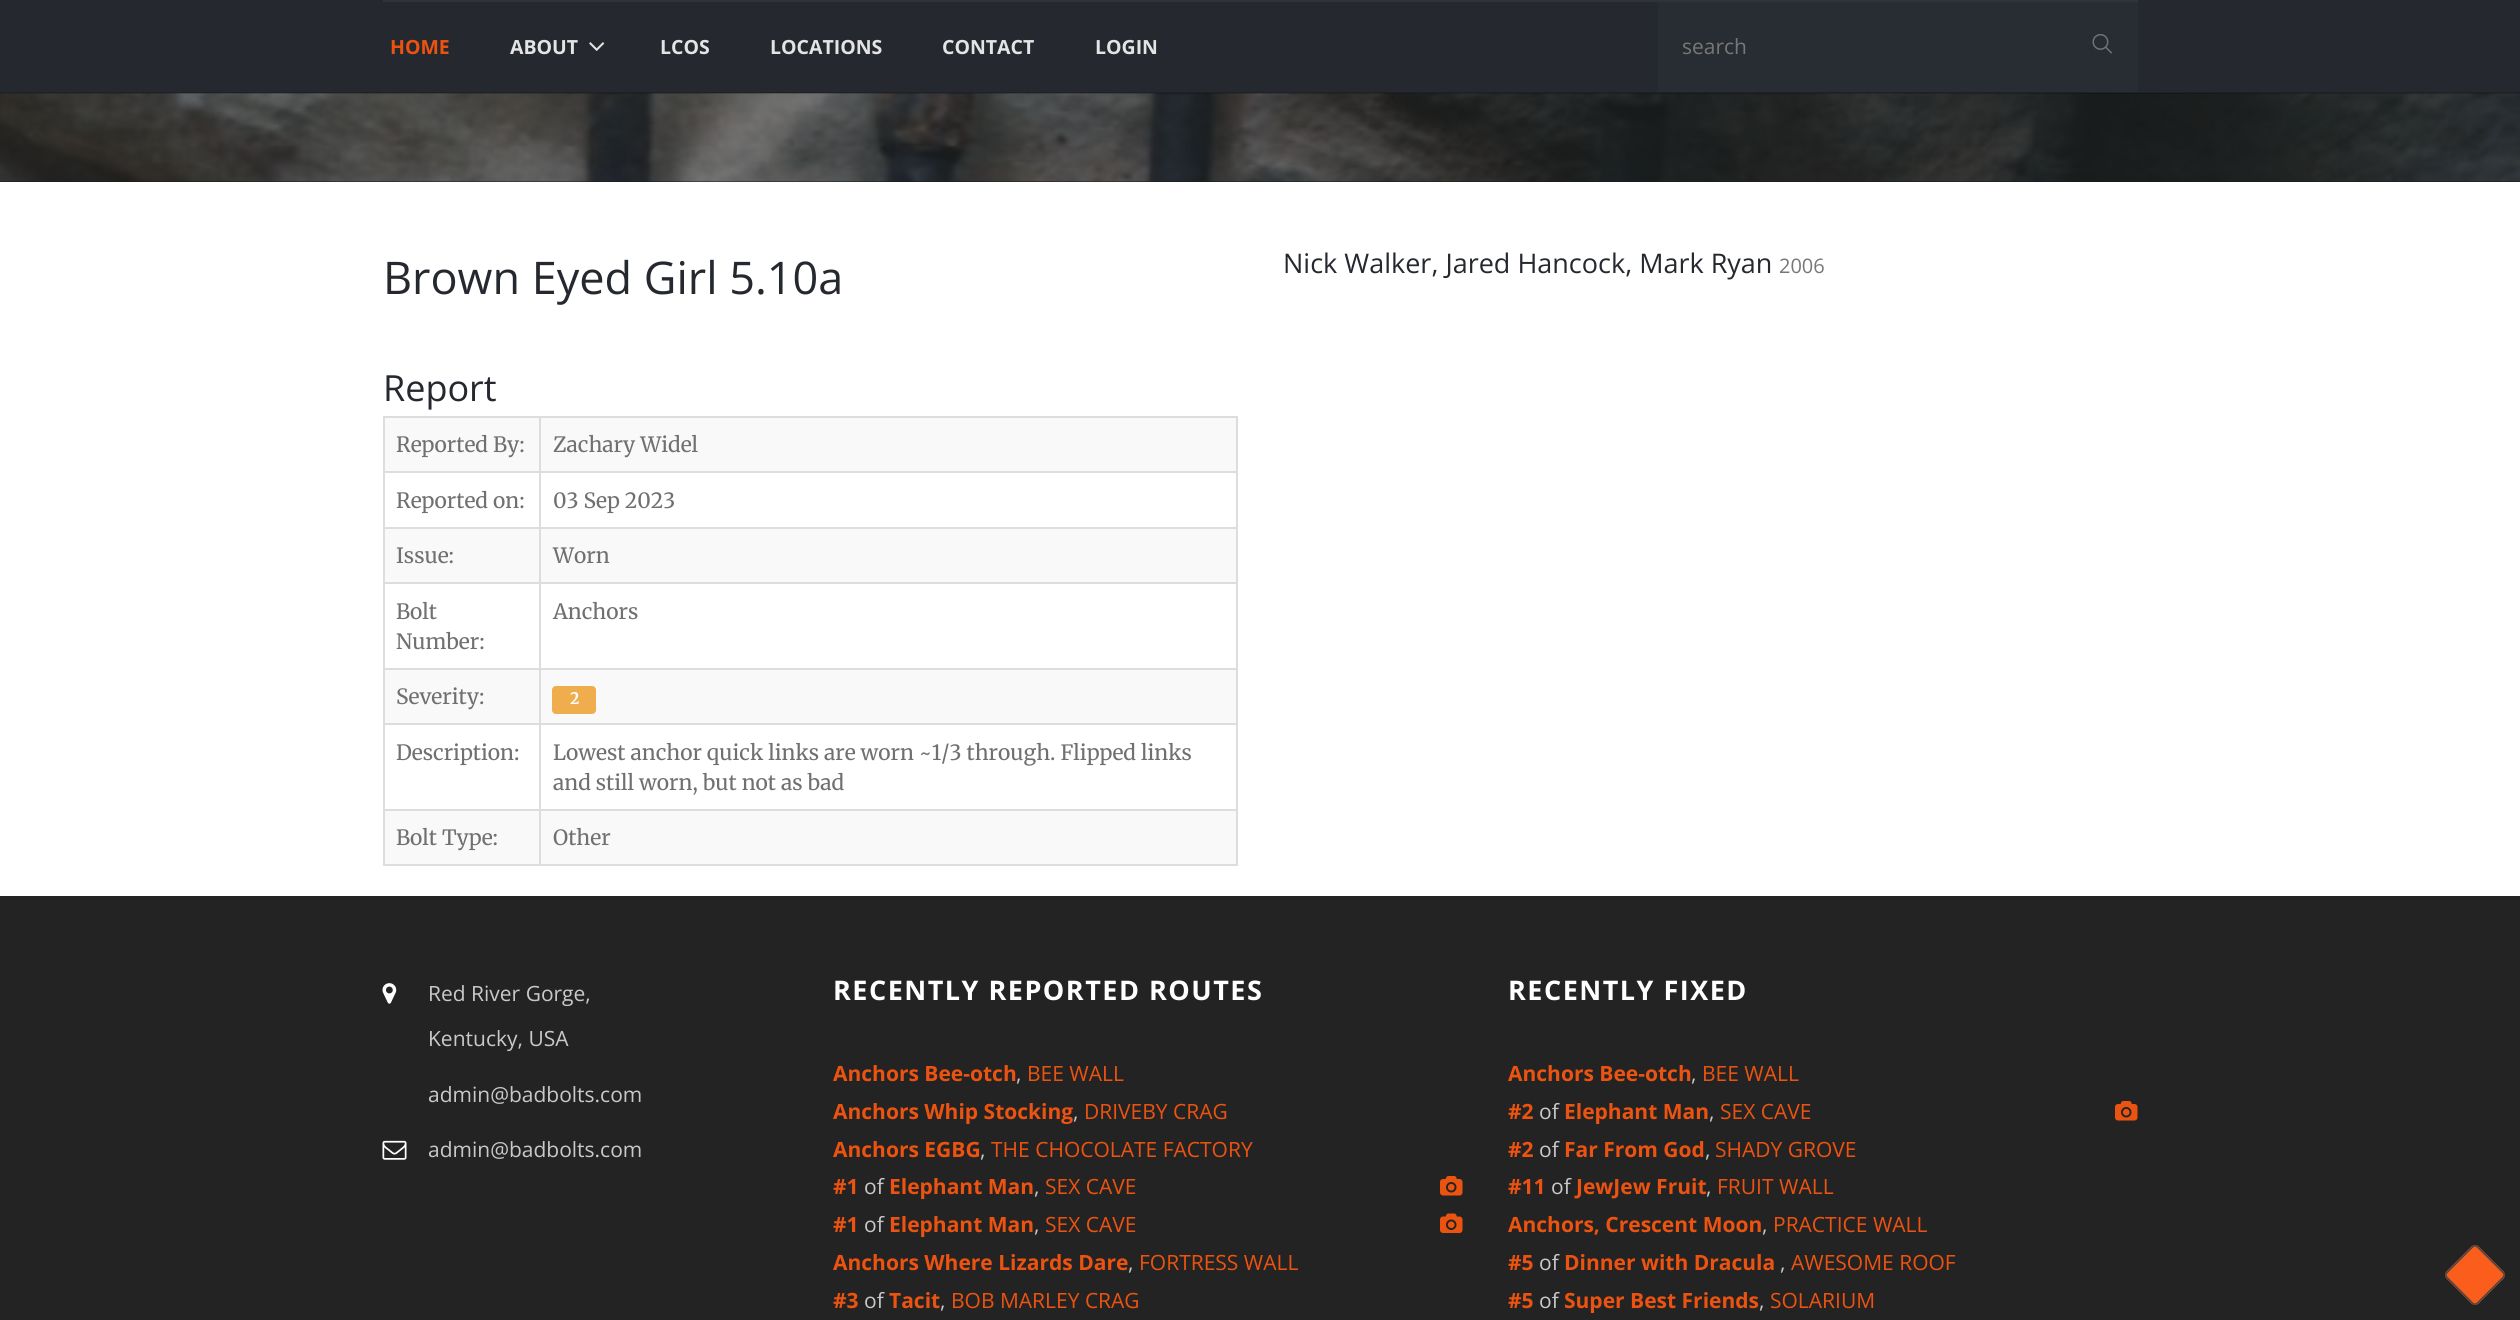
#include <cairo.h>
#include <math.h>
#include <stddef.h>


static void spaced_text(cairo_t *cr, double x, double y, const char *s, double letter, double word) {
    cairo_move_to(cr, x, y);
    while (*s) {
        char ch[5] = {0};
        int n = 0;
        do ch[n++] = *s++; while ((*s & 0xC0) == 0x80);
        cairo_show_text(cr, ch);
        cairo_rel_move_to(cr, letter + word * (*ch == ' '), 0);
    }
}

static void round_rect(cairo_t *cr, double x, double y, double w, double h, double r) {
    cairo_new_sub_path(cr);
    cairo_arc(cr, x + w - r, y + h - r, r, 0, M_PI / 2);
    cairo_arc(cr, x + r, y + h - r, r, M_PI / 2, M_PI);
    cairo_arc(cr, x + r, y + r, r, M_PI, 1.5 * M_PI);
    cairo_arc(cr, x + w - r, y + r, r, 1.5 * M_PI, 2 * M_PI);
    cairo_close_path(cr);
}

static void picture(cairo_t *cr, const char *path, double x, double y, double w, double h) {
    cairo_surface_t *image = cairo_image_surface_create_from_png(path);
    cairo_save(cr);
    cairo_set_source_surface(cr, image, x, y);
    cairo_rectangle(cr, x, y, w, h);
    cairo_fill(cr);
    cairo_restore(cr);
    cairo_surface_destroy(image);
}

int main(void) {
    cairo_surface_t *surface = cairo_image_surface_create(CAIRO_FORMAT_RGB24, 2520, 1320);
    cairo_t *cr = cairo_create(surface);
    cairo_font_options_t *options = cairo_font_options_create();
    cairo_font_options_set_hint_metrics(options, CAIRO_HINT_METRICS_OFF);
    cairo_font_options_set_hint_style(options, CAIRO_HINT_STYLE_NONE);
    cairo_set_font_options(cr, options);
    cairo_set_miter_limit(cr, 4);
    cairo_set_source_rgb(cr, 1, 1, 1);
    cairo_paint(cr);
    cairo_set_source_rgb(cr, 0.145, 0.161, 0.184);
    cairo_rectangle(cr, 0, 0, 2520, 93);
    cairo_fill(cr);
    cairo_set_source_rgb(cr, 0.09, 0.102, 0.11);
    cairo_rectangle(cr, 0, 181, 2520, 1);
    cairo_fill(cr);
    picture(cr, "img3.png", 0, 93, 2520, 89);
    cairo_set_source_rgba(cr, 0, 0, 0, 0.2);
    cairo_rectangle(cr, 0, 92, 2520, 2);
    cairo_fill(cr);
    cairo_set_source_rgb(cr, 0.188, 0.204, 0.224);
    cairo_rectangle(cr, 383, 0, 1755, 2);
    cairo_fill(cr);
    cairo_select_font_face(cr, "Open Sans", CAIRO_FONT_SLANT_NORMAL, CAIRO_FONT_WEIGHT_BOLD);
    cairo_set_font_size(cr, 19.5);
    cairo_set_source_rgb(cr, 0.922, 0.325, 0.063);
    cairo_move_to(cr, 390, 54);
    cairo_show_text(cr, "HOME");
    cairo_set_source_rgb(cr, 0.894, 0.894, 0.894);
    cairo_move_to(cr, 510, 54);
    cairo_show_text(cr, "ABOUT");
    picture(cr, "img1.png", 589, 42, 16, 9);
    cairo_move_to(cr, 660, 54);
    cairo_show_text(cr, "LCOS");
    cairo_move_to(cr, 770, 54);
    cairo_show_text(cr, "LOCATIONS");
    cairo_move_to(cr, 942, 54);
    cairo_show_text(cr, "CONTACT");
    cairo_move_to(cr, 1095, 54);
    cairo_show_text(cr, "LOGIN");
    cairo_set_source_rgb(cr, 0.157, 0.176, 0.204);
    cairo_rectangle(cr, 1658, 2, 480, 90);
    cairo_fill(cr);
    cairo_select_font_face(cr, "Open Sans", CAIRO_FONT_SLANT_NORMAL, CAIRO_FONT_WEIGHT_NORMAL);
    cairo_set_font_size(cr, 21);
    cairo_set_source_rgb(cr, 0.467, 0.467, 0.467);
    cairo_move_to(cr, 1682, 54);
    cairo_show_text(cr, "search");
    picture(cr, "img2.png", 2092, 34, 20, 20);
    cairo_set_font_size(cr, 45);
    cairo_set_source_rgb(cr, 0.145, 0.161, 0.184);
    cairo_move_to(cr, 383, 294);
    cairo_show_text(cr, "Brown Eyed Girl 5.10a");
    cairo_set_font_size(cr, 27);
    cairo_move_to(cr, 1283, 273);
    cairo_show_text(cr, "Nick Walker, Jared Hancock, Mark Ryan");
    cairo_set_font_size(cr, 20);
    cairo_set_source_rgb(cr, 0.467, 0.467, 0.467);
    cairo_move_to(cr, 1779, 273);
    cairo_show_text(cr, "2006");
    cairo_set_font_size(cr, 36);
    cairo_set_source_rgb(cr, 0.145, 0.161, 0.184);
    cairo_move_to(cr, 383, 401);
    cairo_show_text(cr, "Report");
    cairo_set_source_rgb(cr, 0.867, 0.867, 0.867);
    cairo_rectangle(cr, 383, 416, 855, 2);
    cairo_fill(cr);
    cairo_rectangle(cr, 1236, 416, 2, 450);
    cairo_fill(cr);
    cairo_rectangle(cr, 383, 864, 855, 2);
    cairo_fill(cr);
    cairo_rectangle(cr, 383, 416, 2, 450);
    cairo_fill(cr);
    cairo_set_source_rgb(cr, 0.976, 0.976, 0.976);
    cairo_rectangle(cr, 385, 418, 851, 53);
    cairo_fill(cr);
    cairo_select_font_face(cr, "Merriweather", CAIRO_FONT_SLANT_NORMAL, CAIRO_FONT_WEIGHT_NORMAL);
    cairo_set_font_size(cr, 21);
    cairo_set_source_rgb(cr, 0.443, 0.439, 0.439);
    cairo_move_to(cr, 396, 452);
    cairo_show_text(cr, "Reported By:");
    cairo_set_source_rgb(cr, 0.867, 0.867, 0.867);
    cairo_rectangle(cr, 539, 471, 699, 2);
    cairo_fill(cr);
    cairo_rectangle(cr, 539, 527, 699, 2);
    cairo_fill(cr);
    cairo_set_source_rgb(cr, 0.976, 0.976, 0.976);
    cairo_rectangle(cr, 385, 529, 851, 53);
    cairo_fill(cr);
    cairo_set_source_rgb(cr, 0.867, 0.867, 0.867);
    cairo_rectangle(cr, 539, 582, 699, 2);
    cairo_fill(cr);
    cairo_rectangle(cr, 539, 668, 699, 2);
    cairo_fill(cr);
    cairo_set_source_rgb(cr, 0.976, 0.976, 0.976);
    cairo_rectangle(cr, 385, 670, 851, 53);
    cairo_fill(cr);
    cairo_set_source_rgb(cr, 0.867, 0.867, 0.867);
    cairo_rectangle(cr, 539, 723, 699, 2);
    cairo_fill(cr);
    cairo_rectangle(cr, 539, 809, 699, 2);
    cairo_fill(cr);
    cairo_set_source_rgb(cr, 0.976, 0.976, 0.976);
    cairo_rectangle(cr, 385, 811, 851, 53);
    cairo_fill(cr);
    cairo_set_source_rgb(cr, 0.867, 0.867, 0.867);
    cairo_rectangle(cr, 539, 809, 2, 57);
    cairo_fill(cr);
    cairo_rectangle(cr, 383, 809, 157, 2);
    cairo_fill(cr);
    cairo_rectangle(cr, 539, 723, 2, 87);
    cairo_fill(cr);
    cairo_rectangle(cr, 383, 723, 157, 2);
    cairo_fill(cr);
    cairo_rectangle(cr, 539, 668, 2, 57);
    cairo_fill(cr);
    cairo_rectangle(cr, 383, 668, 157, 2);
    cairo_fill(cr);
    cairo_rectangle(cr, 539, 582, 2, 87);
    cairo_fill(cr);
    cairo_rectangle(cr, 383, 582, 157, 2);
    cairo_fill(cr);
    cairo_rectangle(cr, 539, 527, 2, 57);
    cairo_fill(cr);
    cairo_rectangle(cr, 383, 527, 157, 2);
    cairo_fill(cr);
    cairo_rectangle(cr, 539, 471, 2, 57);
    cairo_fill(cr);
    cairo_rectangle(cr, 383, 471, 157, 2);
    cairo_fill(cr);
    cairo_rectangle(cr, 539, 416, 2, 57);
    cairo_fill(cr);
    cairo_set_source_rgb(cr, 0.443, 0.439, 0.439);
    cairo_move_to(cr, 553, 452);
    cairo_show_text(cr, "Zachary Widel");
    cairo_move_to(cr, 396, 508);
    cairo_show_text(cr, "Reported on:");
    cairo_move_to(cr, 553, 508);
    cairo_show_text(cr, "03 Sep 2023");
    cairo_move_to(cr, 396, 563);
    cairo_show_text(cr, "Issue:");
    cairo_move_to(cr, 553, 563);
    cairo_show_text(cr, "Worn");
    cairo_move_to(cr, 396, 619);
    cairo_show_text(cr, "Bolt");
    cairo_move_to(cr, 396, 649);
    cairo_show_text(cr, "Number:");
    cairo_move_to(cr, 553, 619);
    cairo_show_text(cr, "Anchors");
    cairo_move_to(cr, 396, 704);
    cairo_show_text(cr, "Severity:");
    cairo_set_source_rgb(cr, 0.941, 0.678, 0.306);
    round_rect(cr, 552, 686, 44, 28, 4);
    cairo_fill(cr);
    cairo_select_font_face(cr, "Merriweather", CAIRO_FONT_SLANT_NORMAL, CAIRO_FONT_WEIGHT_BOLD);
    cairo_set_font_size(cr, 16);
    cairo_set_source_rgb(cr, 1, 1, 1);
    cairo_move_to(cr, 570, 704);
    cairo_show_text(cr, "2");
    cairo_select_font_face(cr, "Merriweather", CAIRO_FONT_SLANT_NORMAL, CAIRO_FONT_WEIGHT_NORMAL);
    cairo_set_font_size(cr, 21);
    cairo_set_source_rgb(cr, 0.443, 0.439, 0.439);
    cairo_move_to(cr, 396, 760);
    cairo_show_text(cr, "Description:");
    cairo_move_to(cr, 553, 760);
    cairo_show_text(cr, "Lowest anchor quick links are worn ~1/3 through. Flipped links");
    cairo_move_to(cr, 553, 790);
    cairo_show_text(cr, "and still worn, but not as bad");
    cairo_move_to(cr, 396, 845);
    cairo_show_text(cr, "Bolt Type:");
    cairo_move_to(cr, 553, 845);
    cairo_show_text(cr, "Other");
    cairo_set_source_rgb(cr, 0.137, 0.137, 0.137);
    cairo_rectangle(cr, 0, 896, 2520, 424);
    cairo_fill(cr);
    picture(cr, "img4.png", 382, 983, 15, 21);
    cairo_select_font_face(cr, "Open Sans", CAIRO_FONT_SLANT_NORMAL, CAIRO_FONT_WEIGHT_NORMAL);
    cairo_set_source_rgb(cr, 0.788, 0.788, 0.788);
    cairo_move_to(cr, 428, 1001);
    cairo_show_text(cr, "Red River Gorge,");
    cairo_move_to(cr, 428, 1046);
    cairo_show_text(cr, "Kentucky, USA");
    cairo_move_to(cr, 428, 1102);
    cairo_show_text(cr, "admin@badbolts.com");
    picture(cr, "img5.png", 382, 1140, 25, 20);
    cairo_move_to(cr, 428, 1157);
    cairo_show_text(cr, "admin@badbolts.com");
    cairo_select_font_face(cr, "Open Sans", CAIRO_FONT_SLANT_NORMAL, CAIRO_FONT_WEIGHT_BOLD);
    cairo_set_font_size(cr, 27);
    cairo_set_source_rgb(cr, 1, 1, 1);
    spaced_text(cr, 833, 1000, "RECENTLY REPORTED ROUTES", 1.5, 0);
    cairo_set_font_size(cr, 21);
    cairo_set_source_rgb(cr, 0.922, 0.325, 0.063);
    cairo_move_to(cr, 833, 1081);
    cairo_show_text(cr, "Anchors Bee-otch");
    cairo_select_font_face(cr, "Open Sans", CAIRO_FONT_SLANT_NORMAL, CAIRO_FONT_WEIGHT_NORMAL);
    cairo_set_source_rgb(cr, 0.788, 0.788, 0.788);
    cairo_move_to(cr, 1016, 1081);
    cairo_show_text(cr, ",");
    cairo_set_source_rgb(cr, 0.922, 0.325, 0.063);
    cairo_move_to(cr, 1027, 1081);
    cairo_show_text(cr, "BEE WALL");
    cairo_select_font_face(cr, "Open Sans", CAIRO_FONT_SLANT_NORMAL, CAIRO_FONT_WEIGHT_BOLD);
    cairo_move_to(cr, 833, 1119);
    cairo_show_text(cr, "Anchors Whip Stocking");
    cairo_select_font_face(cr, "Open Sans", CAIRO_FONT_SLANT_NORMAL, CAIRO_FONT_WEIGHT_NORMAL);
    cairo_set_source_rgb(cr, 0.788, 0.788, 0.788);
    cairo_move_to(cr, 1073, 1119);
    cairo_show_text(cr, ",");
    cairo_set_source_rgb(cr, 0.922, 0.325, 0.063);
    cairo_move_to(cr, 1084, 1119);
    cairo_show_text(cr, "DRIVEBY CRAG");
    cairo_select_font_face(cr, "Open Sans", CAIRO_FONT_SLANT_NORMAL, CAIRO_FONT_WEIGHT_BOLD);
    cairo_move_to(cr, 833, 1157);
    cairo_show_text(cr, "Anchors EGBG");
    cairo_select_font_face(cr, "Open Sans", CAIRO_FONT_SLANT_NORMAL, CAIRO_FONT_WEIGHT_NORMAL);
    cairo_set_source_rgb(cr, 0.788, 0.788, 0.788);
    cairo_move_to(cr, 980, 1157);
    cairo_show_text(cr, ",");
    cairo_set_source_rgb(cr, 0.922, 0.325, 0.063);
    cairo_move_to(cr, 991, 1157);
    cairo_show_text(cr, "THE CHOCOLATE FACTORY");
    cairo_select_font_face(cr, "Open Sans", CAIRO_FONT_SLANT_NORMAL, CAIRO_FONT_WEIGHT_BOLD);
    cairo_move_to(cr, 833, 1194);
    cairo_show_text(cr, "#1");
    cairo_select_font_face(cr, "Open Sans", CAIRO_FONT_SLANT_NORMAL, CAIRO_FONT_WEIGHT_NORMAL);
    cairo_set_source_rgb(cr, 0.788, 0.788, 0.788);
    cairo_move_to(cr, 864, 1194);
    cairo_show_text(cr, "of");
    cairo_select_font_face(cr, "Open Sans", CAIRO_FONT_SLANT_NORMAL, CAIRO_FONT_WEIGHT_BOLD);
    cairo_set_source_rgb(cr, 0.922, 0.325, 0.063);
    cairo_move_to(cr, 889, 1194);
    cairo_show_text(cr, "Elephant Man");
    cairo_select_font_face(cr, "Open Sans", CAIRO_FONT_SLANT_NORMAL, CAIRO_FONT_WEIGHT_NORMAL);
    cairo_set_source_rgb(cr, 0.788, 0.788, 0.788);
    cairo_move_to(cr, 1034, 1194);
    cairo_show_text(cr, ",");
    cairo_set_source_rgb(cr, 0.922, 0.325, 0.063);
    cairo_move_to(cr, 1045, 1194);
    cairo_show_text(cr, "SEX CAVE");
    picture(cr, "img6.png", 1440, 1176, 23, 20);
    cairo_select_font_face(cr, "Open Sans", CAIRO_FONT_SLANT_NORMAL, CAIRO_FONT_WEIGHT_BOLD);
    cairo_move_to(cr, 833, 1232);
    cairo_show_text(cr, "#1");
    cairo_select_font_face(cr, "Open Sans", CAIRO_FONT_SLANT_NORMAL, CAIRO_FONT_WEIGHT_NORMAL);
    cairo_set_source_rgb(cr, 0.788, 0.788, 0.788);
    cairo_move_to(cr, 864, 1232);
    cairo_show_text(cr, "of");
    cairo_select_font_face(cr, "Open Sans", CAIRO_FONT_SLANT_NORMAL, CAIRO_FONT_WEIGHT_BOLD);
    cairo_set_source_rgb(cr, 0.922, 0.325, 0.063);
    cairo_move_to(cr, 889, 1232);
    cairo_show_text(cr, "Elephant Man");
    cairo_select_font_face(cr, "Open Sans", CAIRO_FONT_SLANT_NORMAL, CAIRO_FONT_WEIGHT_NORMAL);
    cairo_set_source_rgb(cr, 0.788, 0.788, 0.788);
    cairo_move_to(cr, 1034, 1232);
    cairo_show_text(cr, ",");
    cairo_set_source_rgb(cr, 0.922, 0.325, 0.063);
    cairo_move_to(cr, 1045, 1232);
    cairo_show_text(cr, "SEX CAVE");
    picture(cr, "img7.png", 1440, 1213, 23, 20);
    cairo_select_font_face(cr, "Open Sans", CAIRO_FONT_SLANT_NORMAL, CAIRO_FONT_WEIGHT_BOLD);
    cairo_move_to(cr, 833, 1270);
    cairo_show_text(cr, "Anchors Where Lizards Dare");
    cairo_select_font_face(cr, "Open Sans", CAIRO_FONT_SLANT_NORMAL, CAIRO_FONT_WEIGHT_NORMAL);
    cairo_set_source_rgb(cr, 0.788, 0.788, 0.788);
    cairo_move_to(cr, 1128, 1270);
    cairo_show_text(cr, ",");
    cairo_set_source_rgb(cr, 0.922, 0.325, 0.063);
    cairo_move_to(cr, 1139, 1270);
    cairo_show_text(cr, "FORTRESS WALL");
    cairo_select_font_face(cr, "Open Sans", CAIRO_FONT_SLANT_NORMAL, CAIRO_FONT_WEIGHT_BOLD);
    cairo_move_to(cr, 833, 1308);
    cairo_show_text(cr, "#3");
    cairo_select_font_face(cr, "Open Sans", CAIRO_FONT_SLANT_NORMAL, CAIRO_FONT_WEIGHT_NORMAL);
    cairo_set_source_rgb(cr, 0.788, 0.788, 0.788);
    cairo_move_to(cr, 864, 1308);
    cairo_show_text(cr, "of");
    cairo_select_font_face(cr, "Open Sans", CAIRO_FONT_SLANT_NORMAL, CAIRO_FONT_WEIGHT_BOLD);
    cairo_set_source_rgb(cr, 0.922, 0.325, 0.063);
    cairo_move_to(cr, 889, 1308);
    cairo_show_text(cr, "Tacit");
    cairo_select_font_face(cr, "Open Sans", CAIRO_FONT_SLANT_NORMAL, CAIRO_FONT_WEIGHT_NORMAL);
    cairo_set_source_rgb(cr, 0.788, 0.788, 0.788);
    cairo_move_to(cr, 940, 1308);
    cairo_show_text(cr, ",");
    cairo_set_source_rgb(cr, 0.922, 0.325, 0.063);
    cairo_move_to(cr, 951, 1308);
    cairo_show_text(cr, "BOB MARLEY CRAG");
    cairo_select_font_face(cr, "Open Sans", CAIRO_FONT_SLANT_NORMAL, CAIRO_FONT_WEIGHT_BOLD);
    cairo_set_font_size(cr, 27);
    cairo_set_source_rgb(cr, 1, 1, 1);
    spaced_text(cr, 1508, 1000, "RECENTLY FIXED", 1.5, 0);
    cairo_set_font_size(cr, 21);
    cairo_set_source_rgb(cr, 0.922, 0.325, 0.063);
    cairo_move_to(cr, 1508, 1081);
    cairo_show_text(cr, "Anchors Bee-otch");
    cairo_select_font_face(cr, "Open Sans", CAIRO_FONT_SLANT_NORMAL, CAIRO_FONT_WEIGHT_NORMAL);
    cairo_set_source_rgb(cr, 0.788, 0.788, 0.788);
    cairo_move_to(cr, 1691, 1081);
    cairo_show_text(cr, ",");
    cairo_set_source_rgb(cr, 0.922, 0.325, 0.063);
    cairo_move_to(cr, 1702, 1081);
    cairo_show_text(cr, "BEE WALL");
    cairo_select_font_face(cr, "Open Sans", CAIRO_FONT_SLANT_NORMAL, CAIRO_FONT_WEIGHT_BOLD);
    cairo_move_to(cr, 1508, 1119);
    cairo_show_text(cr, "#2");
    cairo_select_font_face(cr, "Open Sans", CAIRO_FONT_SLANT_NORMAL, CAIRO_FONT_WEIGHT_NORMAL);
    cairo_set_source_rgb(cr, 0.788, 0.788, 0.788);
    cairo_move_to(cr, 1539, 1119);
    cairo_show_text(cr, "of");
    cairo_select_font_face(cr, "Open Sans", CAIRO_FONT_SLANT_NORMAL, CAIRO_FONT_WEIGHT_BOLD);
    cairo_set_source_rgb(cr, 0.922, 0.325, 0.063);
    cairo_move_to(cr, 1564, 1119);
    cairo_show_text(cr, "Elephant Man");
    cairo_select_font_face(cr, "Open Sans", CAIRO_FONT_SLANT_NORMAL, CAIRO_FONT_WEIGHT_NORMAL);
    cairo_set_source_rgb(cr, 0.788, 0.788, 0.788);
    cairo_move_to(cr, 1709, 1119);
    cairo_show_text(cr, ",");
    cairo_set_source_rgb(cr, 0.922, 0.325, 0.063);
    cairo_move_to(cr, 1720, 1119);
    cairo_show_text(cr, "SEX CAVE");
    picture(cr, "img6.png", 2115, 1101, 23, 20);
    cairo_select_font_face(cr, "Open Sans", CAIRO_FONT_SLANT_NORMAL, CAIRO_FONT_WEIGHT_BOLD);
    cairo_move_to(cr, 1508, 1157);
    cairo_show_text(cr, "#2");
    cairo_select_font_face(cr, "Open Sans", CAIRO_FONT_SLANT_NORMAL, CAIRO_FONT_WEIGHT_NORMAL);
    cairo_set_source_rgb(cr, 0.788, 0.788, 0.788);
    cairo_move_to(cr, 1539, 1157);
    cairo_show_text(cr, "of");
    cairo_select_font_face(cr, "Open Sans", CAIRO_FONT_SLANT_NORMAL, CAIRO_FONT_WEIGHT_BOLD);
    cairo_set_source_rgb(cr, 0.922, 0.325, 0.063);
    cairo_move_to(cr, 1564, 1157);
    cairo_show_text(cr, "Far From God");
    cairo_select_font_face(cr, "Open Sans", CAIRO_FONT_SLANT_NORMAL, CAIRO_FONT_WEIGHT_NORMAL);
    cairo_set_source_rgb(cr, 0.788, 0.788, 0.788);
    cairo_move_to(cr, 1705, 1157);
    cairo_show_text(cr, ",");
    cairo_set_source_rgb(cr, 0.922, 0.325, 0.063);
    cairo_move_to(cr, 1715, 1157);
    cairo_show_text(cr, "SHADY GROVE");
    cairo_select_font_face(cr, "Open Sans", CAIRO_FONT_SLANT_NORMAL, CAIRO_FONT_WEIGHT_BOLD);
    cairo_move_to(cr, 1508, 1194);
    cairo_show_text(cr, "#11");
    cairo_select_font_face(cr, "Open Sans", CAIRO_FONT_SLANT_NORMAL, CAIRO_FONT_WEIGHT_NORMAL);
    cairo_set_source_rgb(cr, 0.788, 0.788, 0.788);
    cairo_move_to(cr, 1551, 1194);
    cairo_show_text(cr, "of");
    cairo_select_font_face(cr, "Open Sans", CAIRO_FONT_SLANT_NORMAL, CAIRO_FONT_WEIGHT_BOLD);
    cairo_set_source_rgb(cr, 0.922, 0.325, 0.063);
    cairo_move_to(cr, 1576, 1194);
    cairo_show_text(cr, "JewJew Fruit");
    cairo_select_font_face(cr, "Open Sans", CAIRO_FONT_SLANT_NORMAL, CAIRO_FONT_WEIGHT_NORMAL);
    cairo_set_source_rgb(cr, 0.788, 0.788, 0.788);
    cairo_move_to(cr, 1706, 1194);
    cairo_show_text(cr, ",");
    cairo_set_source_rgb(cr, 0.922, 0.325, 0.063);
    cairo_move_to(cr, 1717, 1194);
    cairo_show_text(cr, "FRUIT WALL");
    cairo_select_font_face(cr, "Open Sans", CAIRO_FONT_SLANT_NORMAL, CAIRO_FONT_WEIGHT_BOLD);
    cairo_move_to(cr, 1508, 1232);
    cairo_show_text(cr, "Anchors, Crescent Moon");
    cairo_select_font_face(cr, "Open Sans", CAIRO_FONT_SLANT_NORMAL, CAIRO_FONT_WEIGHT_NORMAL);
    cairo_set_source_rgb(cr, 0.788, 0.788, 0.788);
    cairo_move_to(cr, 1762, 1232);
    cairo_show_text(cr, ",");
    cairo_set_source_rgb(cr, 0.922, 0.325, 0.063);
    cairo_move_to(cr, 1773, 1232);
    cairo_show_text(cr, "PRACTICE WALL");
    cairo_select_font_face(cr, "Open Sans", CAIRO_FONT_SLANT_NORMAL, CAIRO_FONT_WEIGHT_BOLD);
    cairo_move_to(cr, 1508, 1270);
    cairo_show_text(cr, "#5");
    cairo_select_font_face(cr, "Open Sans", CAIRO_FONT_SLANT_NORMAL, CAIRO_FONT_WEIGHT_NORMAL);
    cairo_set_source_rgb(cr, 0.788, 0.788, 0.788);
    cairo_move_to(cr, 1539, 1270);
    cairo_show_text(cr, "of");
    cairo_select_font_face(cr, "Open Sans", CAIRO_FONT_SLANT_NORMAL, CAIRO_FONT_WEIGHT_BOLD);
    cairo_set_source_rgb(cr, 0.922, 0.325, 0.063);
    cairo_move_to(cr, 1564, 1270);
    cairo_show_text(cr, "Dinner with Dracula");
    cairo_select_font_face(cr, "Open Sans", CAIRO_FONT_SLANT_NORMAL, CAIRO_FONT_WEIGHT_NORMAL);
    cairo_set_source_rgb(cr, 0.788, 0.788, 0.788);
    cairo_move_to(cr, 1780, 1270);
    cairo_show_text(cr, ",");
    cairo_set_source_rgb(cr, 0.922, 0.325, 0.063);
    cairo_move_to(cr, 1791, 1270);
    cairo_show_text(cr, "AWESOME ROOF");
    cairo_select_font_face(cr, "Open Sans", CAIRO_FONT_SLANT_NORMAL, CAIRO_FONT_WEIGHT_BOLD);
    cairo_move_to(cr, 1508, 1308);
    cairo_show_text(cr, "#5");
    cairo_select_font_face(cr, "Open Sans", CAIRO_FONT_SLANT_NORMAL, CAIRO_FONT_WEIGHT_NORMAL);
    cairo_set_source_rgb(cr, 0.788, 0.788, 0.788);
    cairo_move_to(cr, 1539, 1308);
    cairo_show_text(cr, "of");
    cairo_select_font_face(cr, "Open Sans", CAIRO_FONT_SLANT_NORMAL, CAIRO_FONT_WEIGHT_BOLD);
    cairo_set_source_rgb(cr, 0.922, 0.325, 0.063);
    cairo_move_to(cr, 1564, 1308);
    cairo_show_text(cr, "Super Best Friends");
    cairo_select_font_face(cr, "Open Sans", CAIRO_FONT_SLANT_NORMAL, CAIRO_FONT_WEIGHT_NORMAL);
    cairo_set_source_rgb(cr, 0.788, 0.788, 0.788);
    cairo_move_to(cr, 1759, 1308);
    cairo_show_text(cr, ",");
    cairo_set_source_rgb(cr, 0.922, 0.325, 0.063);
    cairo_move_to(cr, 1770, 1308);
    cairo_show_text(cr, "SOLARIUM");
    cairo_set_source_rgb(cr, 0.984, 0.369, 0.11);
    cairo_new_path(cr);
    cairo_move_to(cr, 2504, 1278);
    cairo_line_to(cr, 2478, 1304);
    cairo_curve_to(cr, 2476, 1305, 2474, 1305, 2472, 1304);
    cairo_line_to(cr, 2446, 1278);
    cairo_curve_to(cr, 2445, 1276, 2445, 1274, 2446, 1272);
    cairo_line_to(cr, 2472, 1246);
    cairo_curve_to(cr, 2474, 1245, 2476, 1245, 2478, 1246);
    cairo_line_to(cr, 2504, 1272);
    cairo_curve_to(cr, 2505, 1274, 2505, 1276, 2504, 1278);
    cairo_close_path(cr);
    cairo_fill(cr);
    cairo_new_path(cr);
    cairo_move_to(cr, 2503, 1277.5);
    cairo_line_to(cr, 2477.5, 1303);
    cairo_curve_to(cr, 2476, 1304.5, 2474, 1304.5, 2472.5, 1303);
    cairo_line_to(cr, 2447, 1277.5);
    cairo_curve_to(cr, 2445.5, 1276, 2445.5, 1274, 2447, 1272.5);
    cairo_line_to(cr, 2472.5, 1247);
    cairo_curve_to(cr, 2474, 1245.5, 2476, 1245.5, 2477.5, 1247);
    cairo_line_to(cr, 2503, 1272.5);
    cairo_curve_to(cr, 2504.5, 1274, 2504.5, 1276, 2503, 1277.5);
    cairo_close_path(cr);
    cairo_set_source_rgb(cr, 0.271, 0.271, 0.271);
    cairo_set_line_width(cr, 1.5);
    cairo_stroke(cr);
    cairo_surface_write_to_png(surface, "page.png");
    cairo_font_options_destroy(options);
    cairo_destroy(cr);
    cairo_surface_destroy(surface);
    return 0;
}
